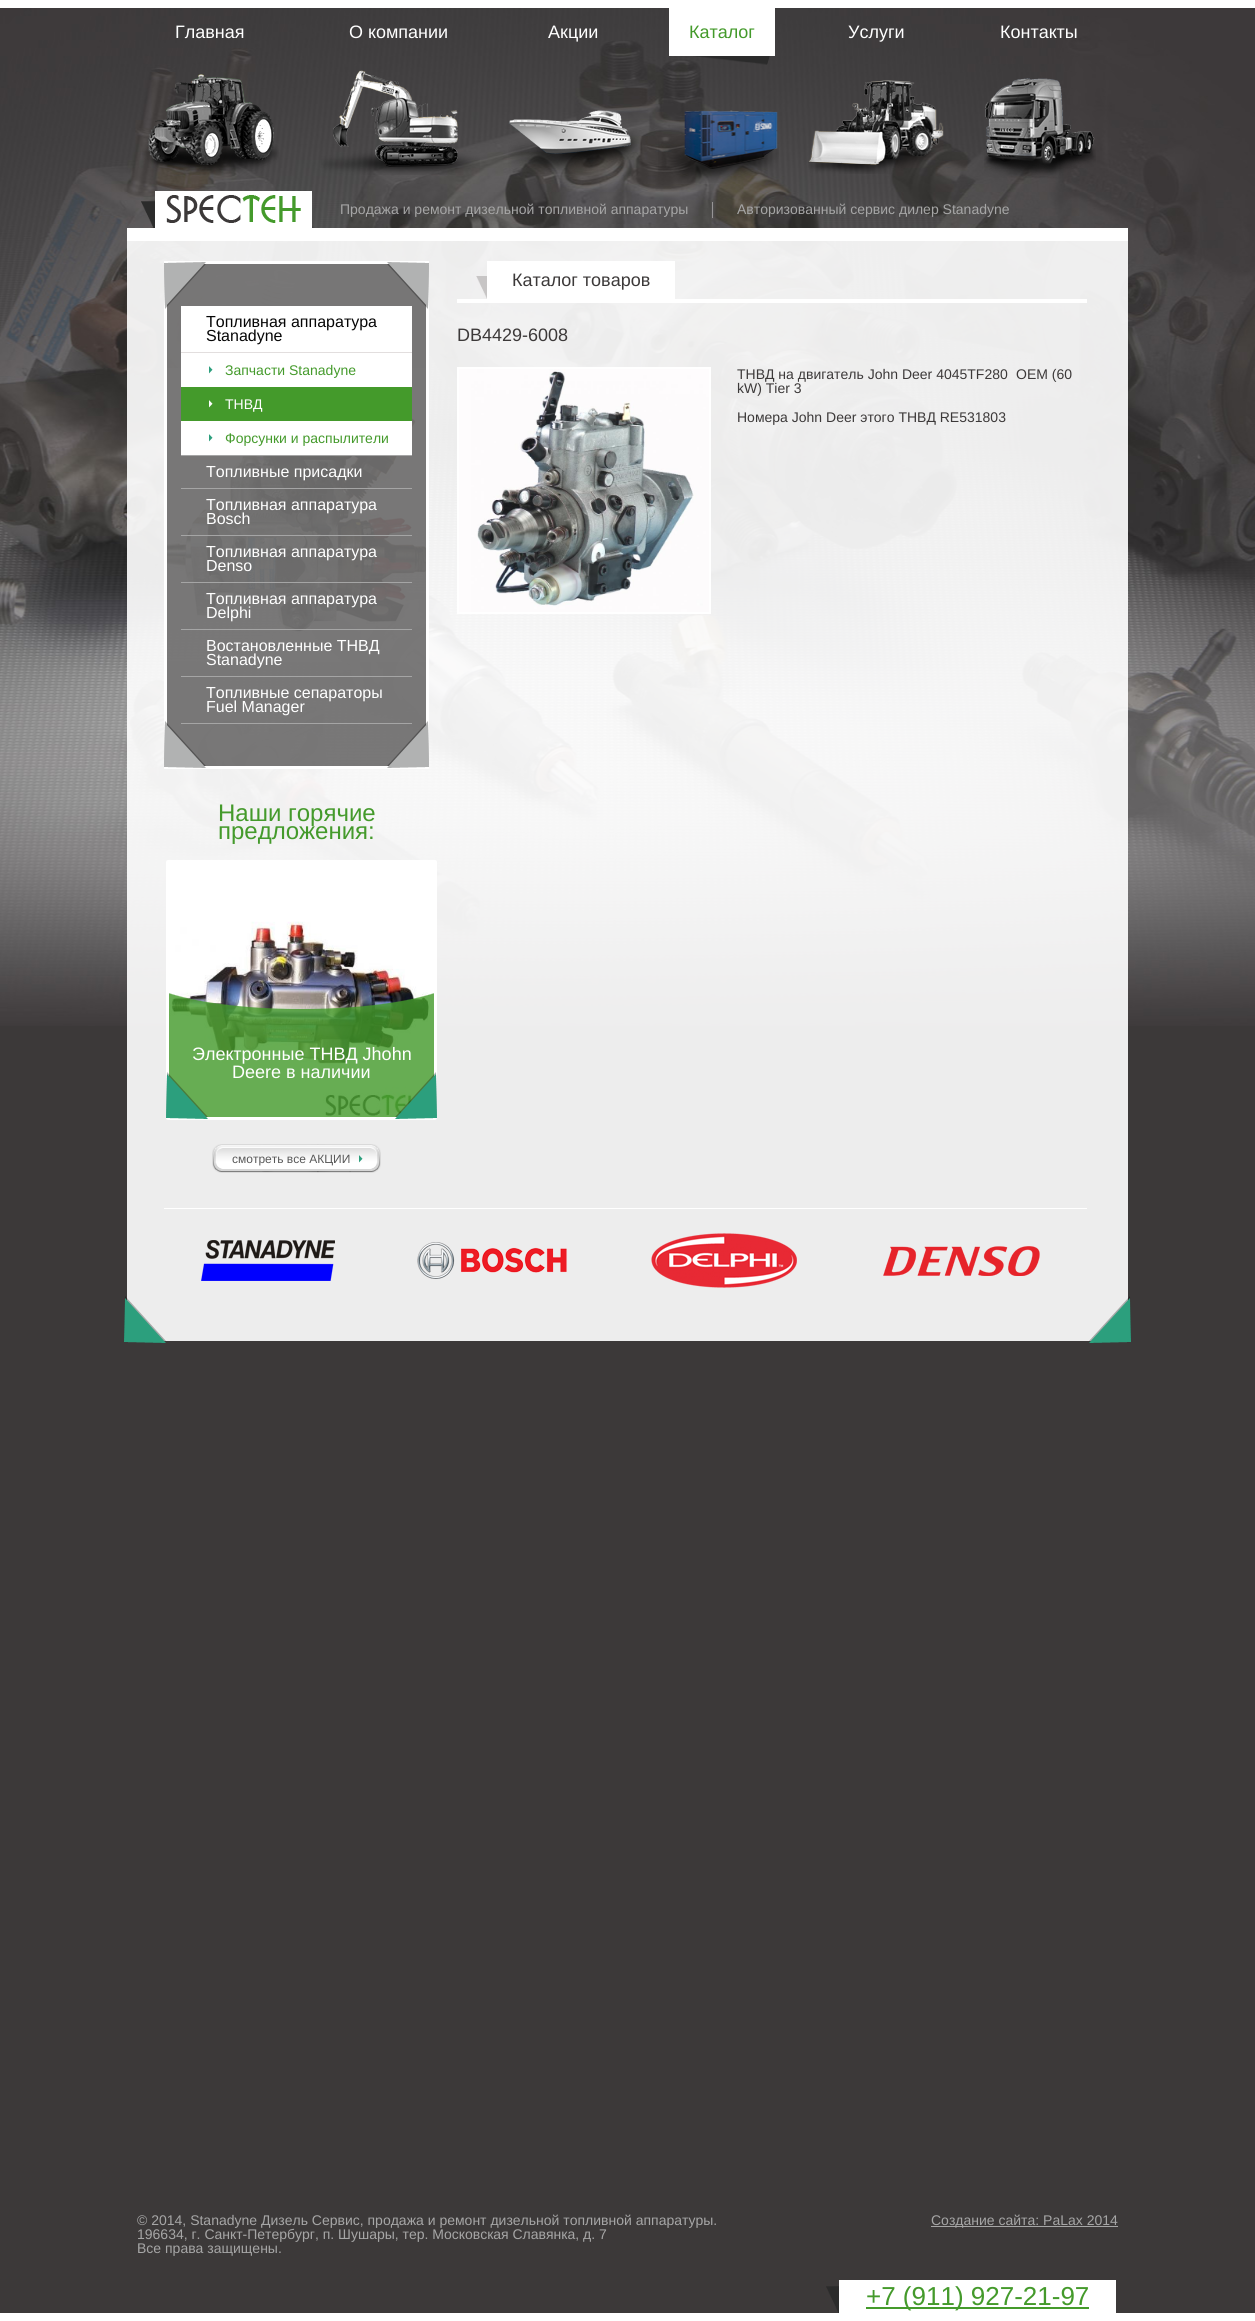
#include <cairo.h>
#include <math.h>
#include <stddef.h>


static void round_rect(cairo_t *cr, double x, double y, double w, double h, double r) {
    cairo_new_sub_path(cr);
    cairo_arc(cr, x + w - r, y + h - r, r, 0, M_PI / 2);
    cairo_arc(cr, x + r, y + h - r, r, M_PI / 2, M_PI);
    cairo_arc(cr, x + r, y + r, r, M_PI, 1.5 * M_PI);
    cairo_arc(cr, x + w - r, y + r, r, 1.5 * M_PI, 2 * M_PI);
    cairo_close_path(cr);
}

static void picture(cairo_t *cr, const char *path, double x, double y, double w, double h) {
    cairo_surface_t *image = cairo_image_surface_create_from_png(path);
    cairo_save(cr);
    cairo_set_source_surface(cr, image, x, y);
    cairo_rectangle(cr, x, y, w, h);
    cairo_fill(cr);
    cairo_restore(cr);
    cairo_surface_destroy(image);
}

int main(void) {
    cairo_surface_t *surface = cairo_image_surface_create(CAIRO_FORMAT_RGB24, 1255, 2321);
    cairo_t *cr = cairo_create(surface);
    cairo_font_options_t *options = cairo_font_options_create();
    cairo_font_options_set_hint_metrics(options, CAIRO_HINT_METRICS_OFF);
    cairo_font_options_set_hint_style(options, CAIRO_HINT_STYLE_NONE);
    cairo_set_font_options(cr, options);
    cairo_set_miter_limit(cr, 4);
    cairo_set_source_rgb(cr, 0.235, 0.224, 0.224);
    cairo_paint(cr);
    picture(cr, "img1.png", 0, 8, 1255, 1018);
    cairo_set_source_rgb(cr, 1, 1, 1);
    cairo_rectangle(cr, 0, 0, 1255, 8);
    cairo_fill(cr);
    cairo_select_font_face(cr, "Liberation Sans", CAIRO_FONT_SLANT_NORMAL, CAIRO_FONT_WEIGHT_NORMAL);
    cairo_set_font_size(cr, 18);
    cairo_move_to(cr, 175, 38);
    cairo_show_text(cr, "Главная");
    picture(cr, "img2.png", 142, 74, 137, 101);
    cairo_move_to(cr, 349, 38);
    cairo_show_text(cr, "О компании");
    picture(cr, "img3.png", 321, 70, 159, 105);
    cairo_move_to(cr, 548, 38);
    cairo_show_text(cr, "Акции");
    picture(cr, "img4.png", 508, 110, 134, 64);
    cairo_rectangle(cr, 669, 8, 106, 48);
    cairo_fill(cr);
    cairo_set_source_rgb(cr, 0.267, 0.604, 0.169);
    cairo_move_to(cr, 689, 38);
    cairo_show_text(cr, "Каталог");
    picture(cr, "img5.png", 693, 56, 77, 9);
    picture(cr, "img6.png", 658, 110, 121, 73);
    cairo_set_source_rgb(cr, 1, 1, 1);
    cairo_move_to(cr, 848, 38);
    cairo_show_text(cr, "Услуги");
    picture(cr, "img7.png", 808, 80, 136, 94);
    cairo_move_to(cr, 1000, 38);
    cairo_show_text(cr, "Контакты");
    picture(cr, "img8.png", 984, 78, 112, 100);
    cairo_rectangle(cr, 127, 228, 1001, 13);
    cairo_fill(cr);
    cairo_rectangle(cr, 155, 191, 157, 37);
    cairo_fill(cr);
    picture(cr, "img9.png", 141, 200, 14, 28);
    picture(cr, "img10.png", 166, 195, 135, 28);
    cairo_set_font_size(cr, 14);
    cairo_set_source_rgb(cr, 0.651, 0.651, 0.651);
    cairo_move_to(cr, 340, 214);
    cairo_show_text(cr, "Продажа и ремонт дизельной топливной аппаратуры");
    cairo_set_source_rgb(cr, 0.588, 0.58, 0.584);
    cairo_rectangle(cr, 712, 202, 1, 16);
    cairo_fill(cr);
    cairo_set_source_rgb(cr, 0.651, 0.651, 0.651);
    cairo_move_to(cr, 737, 214);
    cairo_show_text(cr, "Авторизованный сервис дилер Stanadyne");
    cairo_set_source_rgba(cr, 1, 1, 1, 0.91);
    cairo_rectangle(cr, 127, 241, 1001, 1100);
    cairo_fill(cr);
    picture(cr, "img17.png", 167, 368, 259, 294);
    cairo_set_source_rgba(cr, 0.361, 0.353, 0.353, 0.81);
    cairo_rectangle(cr, 165.5, 262.5, 262, 505);
    cairo_fill_preserve(cr);
    cairo_set_source_rgb(cr, 1, 1, 1);
    cairo_set_line_width(cr, 3);
    cairo_stroke(cr);
    cairo_rectangle(cr, 181, 306, 231, 149);
    cairo_fill(cr);
    picture(cr, "img11.png", 164, 262, 42, 47);
    picture(cr, "img12.png", 387, 262, 42, 47);
    cairo_set_source_rgb(cr, 0.647, 0.647, 0.647);
    cairo_rectangle(cr, 181, 455, 231, 1);
    cairo_fill(cr);
    cairo_set_font_size(cr, 16);
    cairo_set_source_rgb(cr, 0.024, 0.024, 0.024);
    cairo_move_to(cr, 206, 327);
    cairo_show_text(cr, "Топливная аппаратура");
    cairo_move_to(cr, 206, 341);
    cairo_show_text(cr, "Stanadyne");
    cairo_set_source_rgb(cr, 0.886, 0.871, 0.871);
    cairo_rectangle(cr, 181, 352, 231, 1);
    cairo_fill(cr);
    picture(cr, "img13.png", 209, 366, 4, 8);
    cairo_set_font_size(cr, 14);
    cairo_set_source_rgb(cr, 0.267, 0.604, 0.169);
    cairo_move_to(cr, 225, 375);
    cairo_show_text(cr, "Запчасти Stanadyne");
    cairo_rectangle(cr, 181, 387, 231, 34);
    cairo_fill(cr);
    picture(cr, "img14.png", 209, 400, 4, 8);
    cairo_set_source_rgb(cr, 1, 1, 1);
    cairo_move_to(cr, 225, 409);
    cairo_show_text(cr, "ТНВД");
    picture(cr, "img13.png", 209, 434, 4, 8);
    cairo_set_source_rgb(cr, 0.267, 0.604, 0.169);
    cairo_move_to(cr, 225, 443);
    cairo_show_text(cr, "Форсунки и распылители");
    cairo_set_source_rgb(cr, 0.647, 0.647, 0.647);
    cairo_rectangle(cr, 181, 488, 231, 1);
    cairo_fill(cr);
    cairo_set_font_size(cr, 16);
    cairo_set_source_rgb(cr, 1, 1, 1);
    cairo_move_to(cr, 206, 477);
    cairo_show_text(cr, "Топливные присадки");
    cairo_set_source_rgb(cr, 0.647, 0.647, 0.647);
    cairo_rectangle(cr, 181, 535, 231, 1);
    cairo_fill(cr);
    cairo_set_source_rgb(cr, 1, 1, 1);
    cairo_move_to(cr, 206, 510);
    cairo_show_text(cr, "Топливная аппаратура");
    cairo_move_to(cr, 206, 524);
    cairo_show_text(cr, "Bosch");
    cairo_set_source_rgb(cr, 0.647, 0.647, 0.647);
    cairo_rectangle(cr, 181, 582, 231, 1);
    cairo_fill(cr);
    cairo_set_source_rgb(cr, 1, 1, 1);
    cairo_move_to(cr, 206, 557);
    cairo_show_text(cr, "Топливная аппаратура");
    cairo_move_to(cr, 206, 571);
    cairo_show_text(cr, "Denso");
    cairo_set_source_rgb(cr, 0.647, 0.647, 0.647);
    cairo_rectangle(cr, 181, 629, 231, 1);
    cairo_fill(cr);
    cairo_set_source_rgb(cr, 1, 1, 1);
    cairo_move_to(cr, 206, 604);
    cairo_show_text(cr, "Топливная аппаратура");
    cairo_move_to(cr, 206, 618);
    cairo_show_text(cr, "Delphi");
    cairo_set_source_rgb(cr, 0.647, 0.647, 0.647);
    cairo_rectangle(cr, 181, 676, 231, 1);
    cairo_fill(cr);
    cairo_set_source_rgb(cr, 1, 1, 1);
    cairo_move_to(cr, 206, 651);
    cairo_show_text(cr, "Востановленные ТНВД");
    cairo_move_to(cr, 206, 665);
    cairo_show_text(cr, "Stanadyne");
    cairo_set_source_rgb(cr, 0.647, 0.647, 0.647);
    cairo_rectangle(cr, 181, 723, 231, 1);
    cairo_fill(cr);
    cairo_set_source_rgb(cr, 1, 1, 1);
    cairo_move_to(cr, 206, 698);
    cairo_show_text(cr, "Топливные сепараторы");
    cairo_move_to(cr, 206, 712);
    cairo_show_text(cr, "Fuel Manager");
    picture(cr, "img15.png", 164, 721, 42, 47);
    picture(cr, "img16.png", 387, 721, 42, 47);
    cairo_set_font_size(cr, 24);
    cairo_set_source_rgb(cr, 0.267, 0.604, 0.169);
    cairo_move_to(cr, 218, 821);
    cairo_show_text(cr, "Наши горячие");
    cairo_move_to(cr, 218, 839);
    cairo_show_text(cr, "предложения:");
    cairo_set_source_rgb(cr, 1, 1, 1);
    round_rect(cr, 167.5, 861.5, 268, 257, 0.5);
    cairo_fill_preserve(cr);
    cairo_stroke(cr);
    picture(cr, "img18.png", 169, 921, 263, 196);
    cairo_set_source_rgba(cr, 0.267, 0.604, 0.169, 0.81);
    cairo_rectangle(cr, 169, 1009, 265, 108);
    cairo_fill(cr);
    picture(cr, "img19.png", 169, 993, 265, 16);
    cairo_set_font_size(cr, 18);
    cairo_set_source_rgb(cr, 1, 1, 1);
    cairo_move_to(cr, 192, 1060);
    cairo_show_text(cr, "Электронные ТНВД Jhohn");
    cairo_move_to(cr, 232, 1078);
    cairo_show_text(cr, "Deere в наличии");
    picture(cr, "img20.png", 166, 1072, 42, 47);
    picture(cr, "img21.png", 395, 1072, 42, 47);
    picture(cr, "img22.png", 212, 1144, 169, 29);
    cairo_set_font_size(cr, 12);
    cairo_set_source_rgb(cr, 0.345, 0.345, 0.345);
    cairo_move_to(cr, 232, 1163);
    cairo_show_text(cr, "смотреть все АКЦИИ");
    cairo_set_source_rgb(cr, 1, 1, 1);
    cairo_rectangle(cr, 457, 299, 630, 4);
    cairo_fill(cr);
    cairo_rectangle(cr, 487, 261, 188, 38);
    cairo_fill(cr);
    picture(cr, "img23.png", 476, 276, 11, 23);
    cairo_set_font_size(cr, 18);
    cairo_set_source_rgb(cr, 0.235, 0.224, 0.224);
    cairo_move_to(cr, 512, 286);
    cairo_show_text(cr, "Каталог товаров");
    cairo_move_to(cr, 457, 341);
    cairo_show_text(cr, "DB4429-6008");
    cairo_rectangle(cr, 458, 368, 252, 245);
    cairo_set_source_rgb(cr, 1, 1, 1);
    cairo_set_line_width(cr, 2);
    cairo_stroke(cr);
    picture(cr, "img24.png", 459, 369, 250, 243);
    cairo_set_font_size(cr, 14);
    cairo_set_source_rgb(cr, 0.235, 0.224, 0.224);
    cairo_move_to(cr, 737, 379);
    cairo_show_text(cr, "ТНВД на двигатель John Deer 4045TF280");
    cairo_move_to(cr, 1016, 379);
    cairo_show_text(cr, "OEM (60");
    cairo_move_to(cr, 737, 393);
    cairo_show_text(cr, "kW) Tier 3");
    cairo_move_to(cr, 737, 422);
    cairo_show_text(cr, "Номера John Deer этого ТНВД RE531803");
    cairo_set_source_rgb(cr, 1, 1, 1);
    cairo_rectangle(cr, 164, 1208, 923, 1);
    cairo_fill(cr);
    picture(cr, "img25.png", 201, 1240, 134, 41);
    picture(cr, "img26.png", 417, 1242, 150, 37);
    picture(cr, "img27.png", 651, 1233, 146, 55);
    picture(cr, "img28.png", 883, 1246, 157, 30);
    picture(cr, "img29.png", 124, 1296, 42, 47);
    picture(cr, "img30.png", 1089, 1296, 42, 47);
    cairo_set_source_rgb(cr, 0.651, 0.651, 0.651);
    cairo_move_to(cr, 137, 2225);
    cairo_show_text(cr, "© 2014, Stanadyne Дизель Сервис, продажа и ремонт дизельной топливной аппаратуры.");
    cairo_move_to(cr, 137, 2239);
    cairo_show_text(cr, "196634, г. Санкт-Петербург, п. Шушары, тер. Московская Славянка, д. 7");
    cairo_move_to(cr, 137, 2253);
    cairo_show_text(cr, "Все права защищены.");
    cairo_rectangle(cr, 931, 2226, 187, 1);
    cairo_fill(cr);
    cairo_move_to(cr, 931, 2225);
    cairo_show_text(cr, "Создание сайта: PaLax 2014");
    cairo_set_source_rgb(cr, 1, 1, 1);
    cairo_rectangle(cr, 0, 2313, 1255, 8);
    cairo_fill(cr);
    cairo_rectangle(cr, 839, 2280, 277, 33);
    cairo_fill(cr);
    picture(cr, "img31.png", 826, 2286, 13, 27);
    cairo_set_source_rgb(cr, 0.267, 0.604, 0.169);
    cairo_rectangle(cr, 866, 2307, 223, 2);
    cairo_fill(cr);
    cairo_set_font_size(cr, 26);
    cairo_move_to(cr, 866, 2305);
    cairo_show_text(cr, "+7 (911) 927-21-97");
    cairo_surface_write_to_png(surface, "page.png");
    cairo_font_options_destroy(options);
    cairo_destroy(cr);
    cairo_surface_destroy(surface);
    return 0;
}
